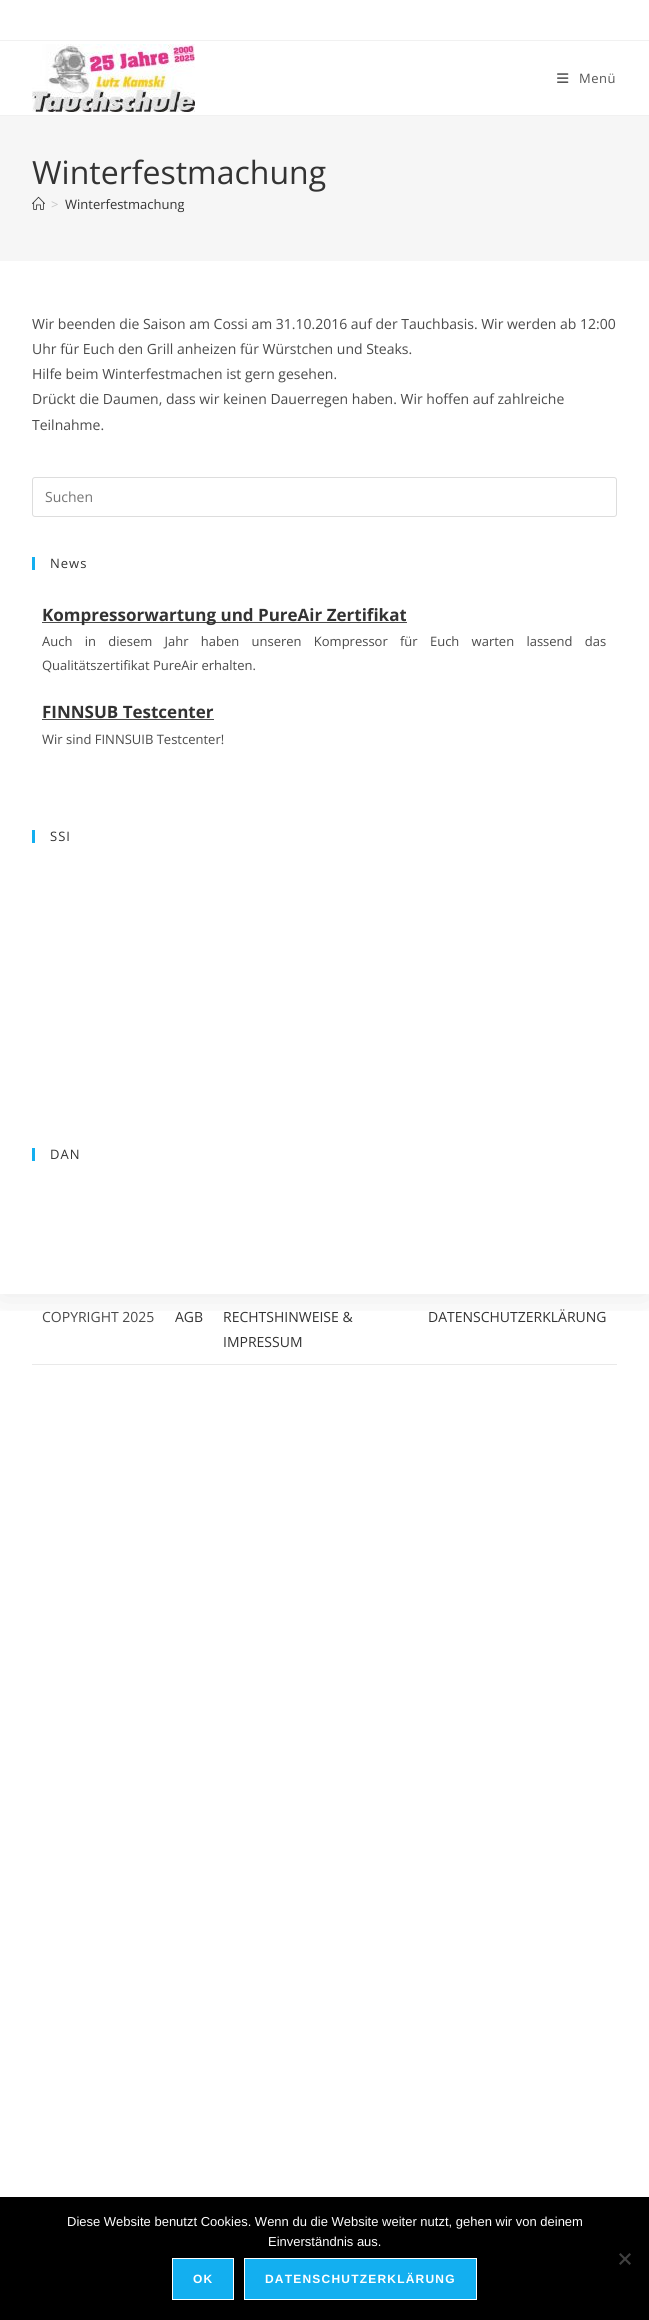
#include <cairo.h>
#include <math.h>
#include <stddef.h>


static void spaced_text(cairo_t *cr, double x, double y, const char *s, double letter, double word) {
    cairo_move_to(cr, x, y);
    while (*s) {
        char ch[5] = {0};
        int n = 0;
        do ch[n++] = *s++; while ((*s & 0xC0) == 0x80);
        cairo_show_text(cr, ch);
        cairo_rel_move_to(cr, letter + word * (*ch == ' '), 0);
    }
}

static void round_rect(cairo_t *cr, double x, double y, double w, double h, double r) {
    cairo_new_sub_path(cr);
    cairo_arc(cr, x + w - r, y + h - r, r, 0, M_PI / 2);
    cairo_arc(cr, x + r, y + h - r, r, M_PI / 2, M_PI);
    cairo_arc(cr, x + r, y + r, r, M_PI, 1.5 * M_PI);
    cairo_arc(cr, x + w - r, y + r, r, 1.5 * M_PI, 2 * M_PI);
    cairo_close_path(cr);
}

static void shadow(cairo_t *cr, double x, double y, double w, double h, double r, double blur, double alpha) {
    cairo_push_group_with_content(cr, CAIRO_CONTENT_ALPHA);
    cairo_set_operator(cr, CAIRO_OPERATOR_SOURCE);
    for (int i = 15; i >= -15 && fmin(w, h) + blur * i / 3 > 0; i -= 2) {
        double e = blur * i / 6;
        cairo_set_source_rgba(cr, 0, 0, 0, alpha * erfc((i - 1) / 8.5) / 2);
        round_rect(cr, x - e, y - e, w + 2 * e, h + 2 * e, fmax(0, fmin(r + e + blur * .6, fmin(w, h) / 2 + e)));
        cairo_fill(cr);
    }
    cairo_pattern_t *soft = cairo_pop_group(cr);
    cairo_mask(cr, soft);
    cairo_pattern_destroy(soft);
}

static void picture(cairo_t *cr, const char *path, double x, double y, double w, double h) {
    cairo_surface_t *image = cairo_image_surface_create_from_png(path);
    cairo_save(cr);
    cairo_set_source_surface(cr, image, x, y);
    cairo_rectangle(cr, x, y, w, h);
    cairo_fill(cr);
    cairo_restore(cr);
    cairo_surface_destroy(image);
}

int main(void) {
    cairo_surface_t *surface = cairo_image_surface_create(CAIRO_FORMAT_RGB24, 649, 2320);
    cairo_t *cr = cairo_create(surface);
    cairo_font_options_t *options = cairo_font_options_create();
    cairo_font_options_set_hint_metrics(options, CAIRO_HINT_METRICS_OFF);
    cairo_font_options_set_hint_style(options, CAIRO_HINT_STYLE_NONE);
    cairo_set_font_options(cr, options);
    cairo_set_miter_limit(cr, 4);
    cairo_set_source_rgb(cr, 1, 1, 1);
    cairo_paint(cr);
    cairo_set_source_rgb(cr, 0.945, 0.945, 0.945);
    cairo_rectangle(cr, 0, 40, 649, 1);
    cairo_fill(cr);
    cairo_save(cr);
    cairo_rectangle(cr, 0, 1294, 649, 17);
    cairo_clip(cr);
    cairo_set_source_rgb(cr, 0, 0, 0);
    shadow(cr, 0, 116, 649, 1178, 0, 20, 0.1);
    cairo_restore(cr);
    cairo_set_source_rgb(cr, 1, 1, 1);
    cairo_rectangle(cr, 0, 90, 649, 25);
    cairo_fill(cr);
    cairo_set_source_rgb(cr, 0.945, 0.945, 0.945);
    cairo_rectangle(cr, 0, 115, 649, 1);
    cairo_fill(cr);
    picture(cr, "img1.png", 32, 44, 163, 68);
    picture(cr, "img2.png", 557, 73, 12, 10);
    cairo_select_font_face(cr, "Open Sans", CAIRO_FONT_SLANT_NORMAL, CAIRO_FONT_WEIGHT_NORMAL);
    cairo_set_font_size(cr, 13);
    cairo_set_source_rgb(cr, 0.333, 0.333, 0.333);
    spaced_text(cr, 579, 83, "Menü", 0.5, 0);
    cairo_set_source_rgb(cr, 0.961, 0.961, 0.961);
    cairo_rectangle(cr, 0, 116, 649, 145);
    cairo_fill(cr);
    cairo_set_font_size(cr, 32);
    cairo_set_source_rgb(cr, 0.2, 0.2, 0.2);
    cairo_move_to(cr, 32, 184);
    cairo_show_text(cr, "Winterfestmachung");
    picture(cr, "img3.png", 32, 196, 13, 14);
    cairo_set_font_size(cr, 13);
    cairo_set_source_rgb(cr, 0.776, 0.776, 0.776);
    cairo_move_to(cr, 51, 209);
    cairo_show_text(cr, ">");
    cairo_set_source_rgb(cr, 0.2, 0.2, 0.2);
    cairo_move_to(cr, 65, 209);
    cairo_show_text(cr, "Winterfestmachung");
    cairo_set_font_size(cr, 14);
    cairo_set_source_rgb(cr, 0.29, 0.29, 0.29);
    cairo_move_to(cr, 32, 329);
    cairo_show_text(cr, "Wir beenden die Saison am Cossi am 31.10.2016 auf der Tauchbasis. Wir werden ab 12:00");
    cairo_move_to(cr, 32, 354);
    cairo_show_text(cr, "Uhr für Euch den Grill anheizen für Würstchen und Steaks.");
    cairo_move_to(cr, 32, 379);
    cairo_show_text(cr, "Hilfe beim Winterfestmachen ist gern gesehen.");
    cairo_move_to(cr, 32, 404);
    cairo_show_text(cr, "Drückt die Daumen, dass wir keinen Dauerregen haben. Wir hoffen auf zahlreiche");
    cairo_move_to(cr, 32, 430);
    cairo_show_text(cr, "Teilnahme.");
    round_rect(cr, 32.5, 477.5, 584, 39, 2.5);
    cairo_set_source_rgb(cr, 0.867, 0.867, 0.867);
    cairo_set_line_width(cr, 1);
    cairo_stroke(cr);
    cairo_set_source_rgb(cr, 0.459, 0.459, 0.459);
    cairo_move_to(cr, 45, 502);
    cairo_show_text(cr, "Suchen");
    cairo_set_source_rgb(cr, 0.075, 0.686, 0.941);
    cairo_rectangle(cr, 32, 557, 3, 13);
    cairo_fill(cr);
    cairo_set_font_size(cr, 13);
    cairo_set_source_rgb(cr, 0.2, 0.2, 0.2);
    spaced_text(cr, 50, 568, "News", 1, 0);
    cairo_set_source_rgb(cr, 0.29, 0.29, 0.29);
    cairo_rectangle(cr, 42, 622, 365, 1);
    cairo_fill(cr);
    cairo_select_font_face(cr, "Open Sans", CAIRO_FONT_SLANT_NORMAL, CAIRO_FONT_WEIGHT_BOLD);
    cairo_set_font_size(cr, 17);
    cairo_set_source_rgb(cr, 0.2, 0.2, 0.2);
    cairo_move_to(cr, 42, 621);
    cairo_show_text(cr, "Kompressorwartung und PureAir Zertifikat");
    cairo_select_font_face(cr, "Open Sans", CAIRO_FONT_SLANT_NORMAL, CAIRO_FONT_WEIGHT_NORMAL);
    cairo_set_font_size(cr, 13);
    cairo_set_source_rgb(cr, 0.29, 0.29, 0.29);
    spaced_text(cr, 42, 646, "Auch in diesem Jahr haben unseren Kompressor für Euch warten lassend das", 0, 8.9);
    cairo_move_to(cr, 42, 670);
    cairo_show_text(cr, "Qualitätszertifikat PureAir erhalten.");
    cairo_select_font_face(cr, "Open Sans", CAIRO_FONT_SLANT_NORMAL, CAIRO_FONT_WEIGHT_BOLD);
    cairo_set_font_size(cr, 17);
    cairo_set_source_rgb(cr, 0.2, 0.2, 0.2);
    cairo_move_to(cr, 42, 718);
    cairo_show_text(cr, "FINNSUB Testcenter");
    cairo_set_source_rgb(cr, 0.29, 0.29, 0.29);
    cairo_rectangle(cr, 42, 719, 172, 1);
    cairo_fill(cr);
    cairo_select_font_face(cr, "Open Sans", CAIRO_FONT_SLANT_NORMAL, CAIRO_FONT_WEIGHT_NORMAL);
    cairo_set_font_size(cr, 13);
    cairo_move_to(cr, 42, 744);
    cairo_show_text(cr, "Wir sind FINNSUIB Testcenter!");
    cairo_set_source_rgb(cr, 0.075, 0.686, 0.941);
    cairo_rectangle(cr, 32, 830, 3, 13);
    cairo_fill(cr);
    cairo_set_source_rgb(cr, 0.2, 0.2, 0.2);
    spaced_text(cr, 50, 841, "SSI", 1, 0);
    cairo_set_source_rgb(cr, 0.075, 0.686, 0.941);
    cairo_rectangle(cr, 32, 1148, 3, 13);
    cairo_fill(cr);
    cairo_set_source_rgb(cr, 0.2, 0.2, 0.2);
    spaced_text(cr, 50, 1159, "DAN", 1, 0);
    cairo_set_font_size(cr, 14);
    cairo_set_source_rgb(cr, 0.29, 0.29, 0.29);
    cairo_move_to(cr, 42, 1322);
    cairo_show_text(cr, "COPYRIGHT 2025");
    cairo_set_source_rgb(cr, 0.2, 0.2, 0.2);
    cairo_move_to(cr, 175, 1322);
    cairo_show_text(cr, "AGB");
    cairo_move_to(cr, 223, 1322);
    cairo_show_text(cr, "RECHTSHINWEISE &");
    cairo_move_to(cr, 223, 1347);
    cairo_show_text(cr, "IMPRESSUM");
    cairo_set_source_rgb(cr, 0.914, 0.914, 0.914);
    cairo_rectangle(cr, 32, 1364, 585, 1);
    cairo_fill(cr);
    cairo_set_source_rgb(cr, 0.2, 0.2, 0.2);
    cairo_move_to(cr, 428, 1322);
    cairo_show_text(cr, "DATENSCHUTZERKLÄRUNG");
    cairo_set_source_rgb(cr, 0, 0, 0);
    cairo_rectangle(cr, 0, 2197, 649, 123);
    cairo_fill(cr);
    cairo_select_font_face(cr, "Liberation Sans", CAIRO_FONT_SLANT_NORMAL, CAIRO_FONT_WEIGHT_NORMAL);
    cairo_set_font_size(cr, 13);
    cairo_set_source_rgb(cr, 1, 1, 1);
    cairo_move_to(cr, 67, 2226);
    cairo_show_text(cr, "Diese Website benutzt Cookies. Wenn du die Website weiter nutzt, gehen wir von deinem");
    cairo_move_to(cr, 268, 2246);
    cairo_show_text(cr, "Einverständnis aus.");
    cairo_set_source_rgb(cr, 0.251, 0.251, 0.251);
    cairo_new_path(cr);
    cairo_move_to(cr, 629.5, 2253);
    cairo_line_to(cr, 631, 2254.5);
    cairo_line_to(cr, 620.5, 2265);
    cairo_line_to(cr, 619, 2263.5);
    cairo_close_path(cr);
    cairo_fill(cr);
    cairo_new_path(cr);
    cairo_move_to(cr, 619, 2254.5);
    cairo_line_to(cr, 620.5, 2253);
    cairo_line_to(cr, 631, 2263.5);
    cairo_line_to(cr, 629.5, 2265);
    cairo_close_path(cr);
    cairo_fill(cr);
    cairo_set_source_rgb(cr, 0.075, 0.686, 0.941);
    cairo_rectangle(cr, 172.5, 2258.5, 61, 41);
    cairo_fill_preserve(cr);
    cairo_set_source_rgb(cr, 1, 1, 1);
    cairo_stroke(cr);
    cairo_select_font_face(cr, "Liberation Sans", CAIRO_FONT_SLANT_NORMAL, CAIRO_FONT_WEIGHT_BOLD);
    cairo_set_font_size(cr, 12);
    spaced_text(cr, 193, 2283, "OK", 1.2, 0);
    cairo_set_source_rgb(cr, 0.075, 0.686, 0.941);
    cairo_rectangle(cr, 244.5, 2258.5, 232, 41);
    cairo_fill_preserve(cr);
    cairo_set_source_rgb(cr, 1, 1, 1);
    cairo_stroke(cr);
    spaced_text(cr, 265, 2283, "DATENSCHUTZERKLÄRUNG", 1.2, 0);
    cairo_surface_write_to_png(surface, "page.png");
    cairo_font_options_destroy(options);
    cairo_destroy(cr);
    cairo_surface_destroy(surface);
    return 0;
}
